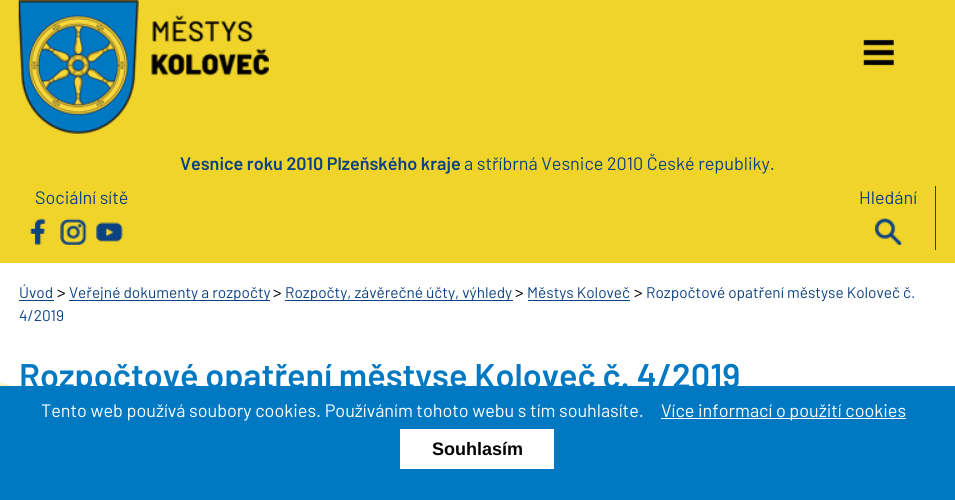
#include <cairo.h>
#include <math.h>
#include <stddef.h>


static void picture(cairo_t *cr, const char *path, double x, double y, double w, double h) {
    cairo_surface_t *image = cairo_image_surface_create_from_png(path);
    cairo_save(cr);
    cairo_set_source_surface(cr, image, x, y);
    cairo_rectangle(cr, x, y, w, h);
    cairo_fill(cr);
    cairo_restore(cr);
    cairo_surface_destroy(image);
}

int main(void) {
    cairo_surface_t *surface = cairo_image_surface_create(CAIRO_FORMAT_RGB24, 955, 500);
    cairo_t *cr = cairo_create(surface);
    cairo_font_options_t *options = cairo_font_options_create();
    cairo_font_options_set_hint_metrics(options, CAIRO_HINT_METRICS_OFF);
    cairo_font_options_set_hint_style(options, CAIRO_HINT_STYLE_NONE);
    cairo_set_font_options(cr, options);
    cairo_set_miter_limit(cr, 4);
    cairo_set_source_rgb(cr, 1, 1, 1);
    cairo_paint(cr);
    cairo_set_source_rgb(cr, 0.945, 0.831, 0.165);
    cairo_rectangle(cr, 0, 0, 955, 263);
    cairo_fill(cr);
    picture(cr, "img1.png", 18, 0, 251, 134);
    picture(cr, "img2.png", 863, 39, 31, 27);
    cairo_select_font_face(cr, "Barlow SemiBold", CAIRO_FONT_SLANT_NORMAL, CAIRO_FONT_WEIGHT_NORMAL);
    cairo_set_font_size(cr, 18);
    cairo_set_source_rgb(cr, 0.047, 0.255, 0.51);
    cairo_move_to(cr, 180, 170);
    cairo_show_text(cr, "Vesnice roku 2010 Plzeňského kraje");
    cairo_select_font_face(cr, "Barlow", CAIRO_FONT_SLANT_NORMAL, CAIRO_FONT_WEIGHT_NORMAL);
    cairo_move_to(cr, 464, 170);
    cairo_show_text(cr, "a stříbrná Vesnice 2010 České republiky.");
    cairo_move_to(cr, 35, 204);
    cairo_show_text(cr, "Sociální sítě");
    picture(cr, "img3.png", 30, 218, 16, 27);
    picture(cr, "img4.png", 60, 218, 27, 27);
    picture(cr, "img5.png", 96, 222, 27, 20);
    cairo_rectangle(cr, 935, 186, 1, 64);
    cairo_fill(cr);
    cairo_move_to(cr, 859, 204);
    cairo_show_text(cr, "Hledání");
    picture(cr, "img6.png", 875, 218, 27, 27);
    picture(cr, "img7.png", 0, 382, 14, 4);
    cairo_set_font_size(cr, 15.4);
    cairo_move_to(cr, 19, 298);
    cairo_show_text(cr, "Úvod");
    cairo_rectangle(cr, 19, 300, 35, 1);
    cairo_fill(cr);
    cairo_set_font_size(cr, 17);
    cairo_set_source_rgb(cr, 0, 0, 0);
    cairo_move_to(cr, 57, 298);
    cairo_show_text(cr, ">");
    cairo_set_source_rgb(cr, 0.047, 0.255, 0.51);
    cairo_rectangle(cr, 69, 300, 201, 1);
    cairo_fill(cr);
    cairo_set_font_size(cr, 15.4);
    cairo_move_to(cr, 69, 298);
    cairo_show_text(cr, "Veřejné dokumenty a rozpočty");
    cairo_set_font_size(cr, 17);
    cairo_set_source_rgb(cr, 0, 0, 0);
    cairo_move_to(cr, 273, 298);
    cairo_show_text(cr, ">");
    cairo_set_source_rgb(cr, 0.047, 0.255, 0.51);
    cairo_rectangle(cr, 285, 300, 228, 1);
    cairo_fill(cr);
    cairo_set_font_size(cr, 15.4);
    cairo_move_to(cr, 285, 298);
    cairo_show_text(cr, "Rozpočty, závěrečné účty, výhledy");
    cairo_set_font_size(cr, 17);
    cairo_set_source_rgb(cr, 0, 0, 0);
    cairo_move_to(cr, 515, 298);
    cairo_show_text(cr, ">");
    cairo_set_source_rgb(cr, 0.047, 0.255, 0.51);
    cairo_rectangle(cr, 528, 300, 102, 1);
    cairo_fill(cr);
    cairo_set_font_size(cr, 15.4);
    cairo_move_to(cr, 527, 298);
    cairo_show_text(cr, "Městys Koloveč");
    cairo_set_font_size(cr, 17);
    cairo_set_source_rgb(cr, 0, 0, 0);
    cairo_move_to(cr, 634, 298);
    cairo_show_text(cr, ">");
    cairo_set_font_size(cr, 15.4);
    cairo_set_source_rgb(cr, 0.047, 0.255, 0.51);
    cairo_move_to(cr, 646, 298);
    cairo_show_text(cr, "Rozpočtové opatření městyse Koloveč č.");
    cairo_move_to(cr, 19, 321);
    cairo_show_text(cr, "4/2019");
    cairo_select_font_face(cr, "Barlow SemiBold", CAIRO_FONT_SLANT_NORMAL, CAIRO_FONT_WEIGHT_NORMAL);
    cairo_set_font_size(cr, 34.2);
    cairo_set_source_rgb(cr, 0, 0.475, 0.761);
    cairo_move_to(cr, 19, 388);
    cairo_show_text(cr, "Rozpočtové opatření městyse Koloveč č. 4/2019");
    cairo_rectangle(cr, 0, 386, 955, 114);
    cairo_fill(cr);
    cairo_select_font_face(cr, "Barlow", CAIRO_FONT_SLANT_NORMAL, CAIRO_FONT_WEIGHT_NORMAL);
    cairo_set_font_size(cr, 18);
    cairo_set_source_rgb(cr, 1, 1, 1);
    cairo_move_to(cr, 41, 417);
    cairo_show_text(cr, "Tento web používá soubory cookies. Používáním tohoto webu s tím souhlasíte.");
    cairo_rectangle(cr, 661, 418, 245, 1);
    cairo_fill(cr);
    cairo_move_to(cr, 661, 417);
    cairo_show_text(cr, "Více informací o použití cookies");
    cairo_rectangle(cr, 400, 429, 154, 40);
    cairo_fill(cr);
    cairo_select_font_face(cr, "Liberation Sans", CAIRO_FONT_SLANT_NORMAL, CAIRO_FONT_WEIGHT_BOLD);
    cairo_set_source_rgb(cr, 0, 0, 0);
    cairo_move_to(cr, 432, 455);
    cairo_show_text(cr, "Souhlasím");
    cairo_surface_write_to_png(surface, "page.png");
    cairo_font_options_destroy(options);
    cairo_destroy(cr);
    cairo_surface_destroy(surface);
    return 0;
}
